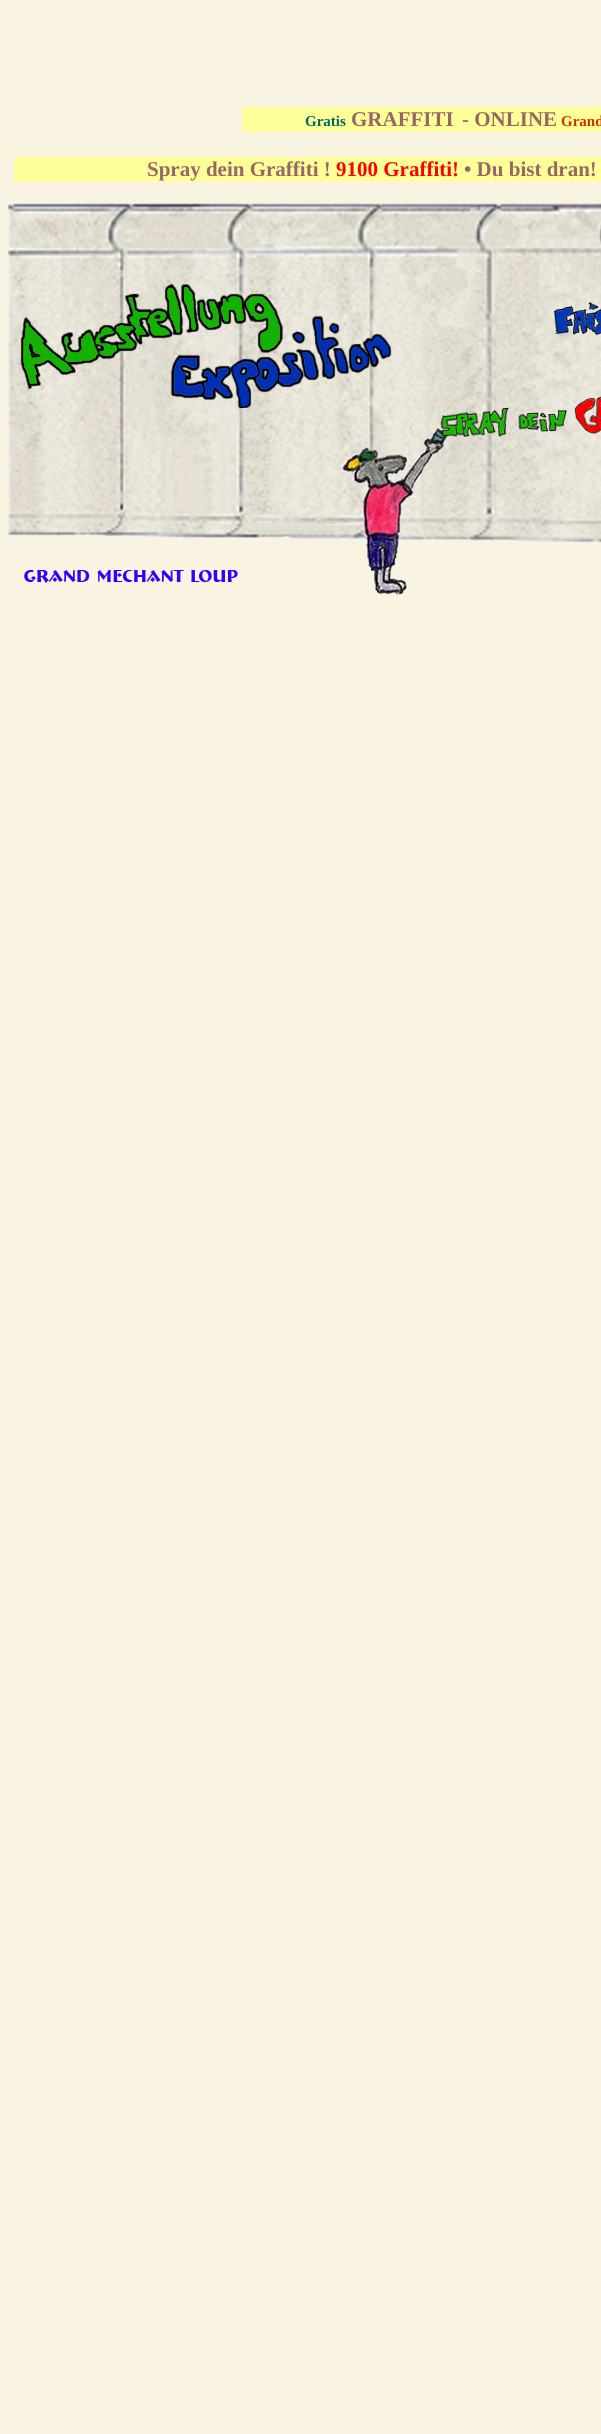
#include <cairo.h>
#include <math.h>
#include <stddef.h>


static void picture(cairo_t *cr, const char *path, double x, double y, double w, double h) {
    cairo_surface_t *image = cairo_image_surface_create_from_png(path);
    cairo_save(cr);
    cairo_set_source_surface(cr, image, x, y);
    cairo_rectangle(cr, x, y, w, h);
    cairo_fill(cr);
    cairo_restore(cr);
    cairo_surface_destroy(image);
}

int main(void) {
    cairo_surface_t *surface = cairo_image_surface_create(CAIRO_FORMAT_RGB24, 601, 2434);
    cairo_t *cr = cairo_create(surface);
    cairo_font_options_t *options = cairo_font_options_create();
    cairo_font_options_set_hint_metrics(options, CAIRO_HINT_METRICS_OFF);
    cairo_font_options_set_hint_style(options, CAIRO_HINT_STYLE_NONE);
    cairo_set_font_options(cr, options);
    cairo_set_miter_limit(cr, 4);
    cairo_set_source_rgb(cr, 0.976, 0.957, 0.882);
    cairo_paint(cr);
    cairo_set_source_rgb(cr, 1, 1, 0.6);
    cairo_rectangle(cr, 242, 107, 359, 25);
    cairo_fill(cr);
    cairo_select_font_face(cr, "Liberation Serif", CAIRO_FONT_SLANT_NORMAL, CAIRO_FONT_WEIGHT_BOLD);
    cairo_set_font_size(cr, 15);
    cairo_set_source_rgb(cr, 0, 0.4, 0.4);
    cairo_move_to(cr, 305, 126);
    cairo_show_text(cr, "Gratis");
    cairo_set_font_size(cr, 21);
    cairo_set_source_rgb(cr, 0.6, 0.4, 0.4);
    cairo_move_to(cr, 351, 126);
    cairo_show_text(cr, "GRAFFITI");
    cairo_move_to(cr, 462, 126);
    cairo_show_text(cr, "- ONLINE");
    cairo_set_font_size(cr, 15);
    cairo_set_source_rgb(cr, 0.8, 0.2, 0);
    cairo_move_to(cr, 561, 126);
    cairo_show_text(cr, "Grand");
    cairo_set_source_rgb(cr, 1, 1, 0.6);
    cairo_rectangle(cr, 14, 157, 587, 25);
    cairo_fill(cr);
    cairo_set_font_size(cr, 21);
    cairo_set_source_rgb(cr, 0.6, 0.4, 0.4);
    cairo_move_to(cr, 147, 176);
    cairo_show_text(cr, "Spray dein Graffiti !");
    cairo_set_source_rgb(cr, 1, 0, 0);
    cairo_move_to(cr, 336, 176);
    cairo_show_text(cr, "9100 Graffiti!");
    cairo_set_source_rgb(cr, 0.6, 0.4, 0.4);
    cairo_move_to(cr, 464, 176);
    cairo_show_text(cr, "• Du bist dran!");
    picture(cr, "img1.png", 8, 203, 593, 393);
    picture(cr, "img2.png", 20, 283, 372, 125);
    picture(cr, "img3.png", 554, 302, 47, 34);
    picture(cr, "img4.png", 440, 396, 161, 41);
    picture(cr, "img5.png", 24, 570, 214, 13);
    cairo_surface_write_to_png(surface, "page.png");
    cairo_font_options_destroy(options);
    cairo_destroy(cr);
    cairo_surface_destroy(surface);
    return 0;
}
